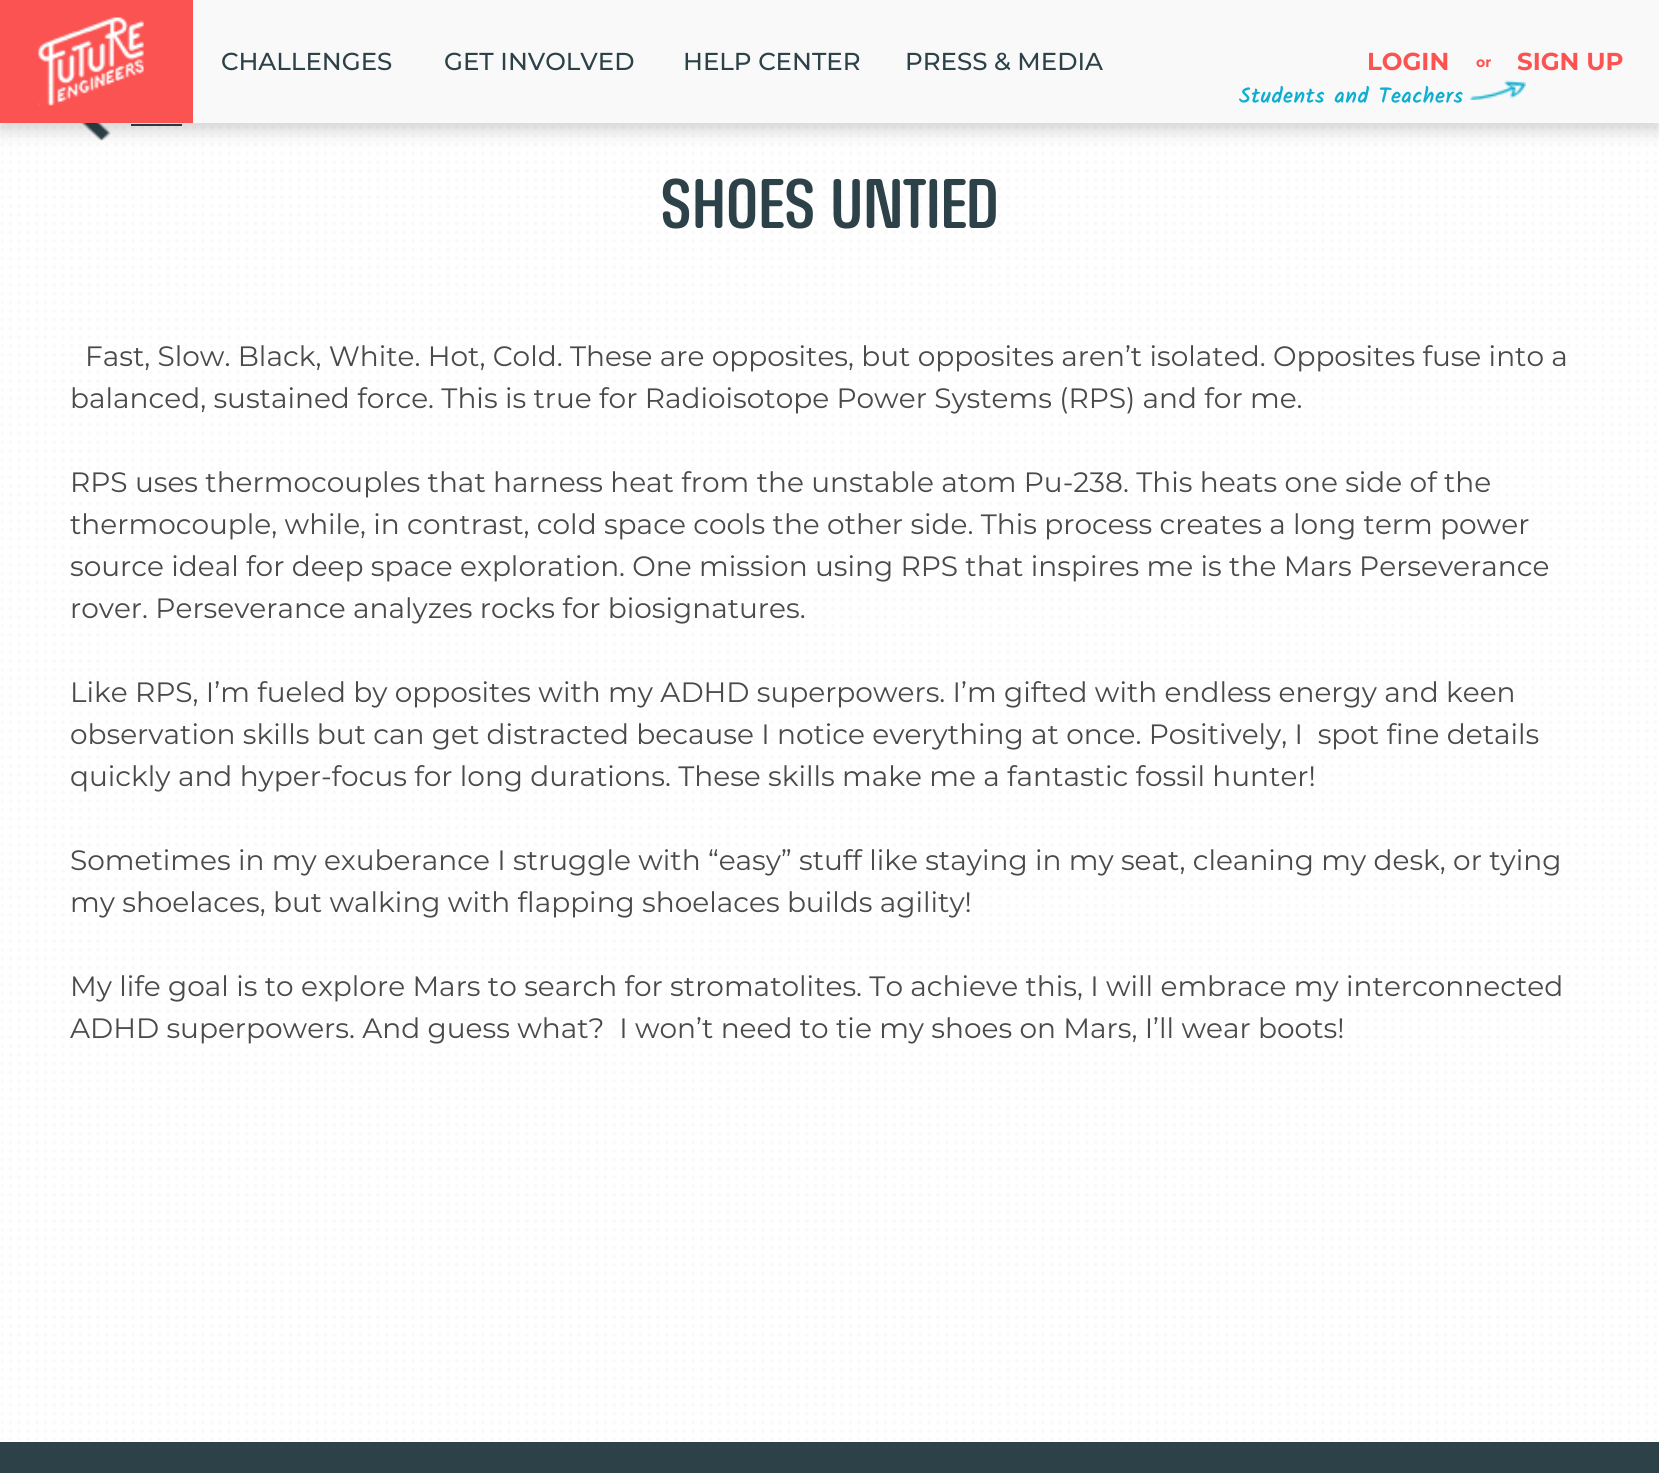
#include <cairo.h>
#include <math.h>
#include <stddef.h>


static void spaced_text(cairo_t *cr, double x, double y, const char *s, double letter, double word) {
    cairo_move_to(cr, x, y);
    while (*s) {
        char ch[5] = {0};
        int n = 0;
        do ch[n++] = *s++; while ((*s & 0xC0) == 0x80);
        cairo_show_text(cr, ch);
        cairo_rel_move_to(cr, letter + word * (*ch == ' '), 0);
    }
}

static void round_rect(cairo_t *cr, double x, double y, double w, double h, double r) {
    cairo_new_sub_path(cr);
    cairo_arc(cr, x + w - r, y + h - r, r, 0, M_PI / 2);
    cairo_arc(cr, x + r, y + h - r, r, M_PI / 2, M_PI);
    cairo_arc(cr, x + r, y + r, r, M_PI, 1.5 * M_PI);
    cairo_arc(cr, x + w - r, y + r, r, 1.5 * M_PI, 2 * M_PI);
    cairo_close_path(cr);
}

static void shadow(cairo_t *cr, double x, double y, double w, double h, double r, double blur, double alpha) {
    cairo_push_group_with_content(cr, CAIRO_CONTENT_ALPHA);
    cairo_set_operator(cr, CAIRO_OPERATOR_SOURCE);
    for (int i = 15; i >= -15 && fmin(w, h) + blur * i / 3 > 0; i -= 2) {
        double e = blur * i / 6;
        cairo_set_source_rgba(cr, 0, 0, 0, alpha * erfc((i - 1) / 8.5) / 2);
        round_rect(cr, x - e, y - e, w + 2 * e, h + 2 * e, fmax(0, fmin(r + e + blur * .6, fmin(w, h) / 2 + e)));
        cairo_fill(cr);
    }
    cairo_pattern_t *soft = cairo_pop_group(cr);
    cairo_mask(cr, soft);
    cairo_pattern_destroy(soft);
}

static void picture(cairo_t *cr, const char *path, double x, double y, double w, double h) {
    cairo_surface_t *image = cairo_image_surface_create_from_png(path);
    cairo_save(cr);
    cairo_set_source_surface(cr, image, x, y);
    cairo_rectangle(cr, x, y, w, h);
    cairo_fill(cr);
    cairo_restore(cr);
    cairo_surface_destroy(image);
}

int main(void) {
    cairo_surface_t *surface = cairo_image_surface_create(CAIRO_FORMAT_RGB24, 1659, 1473);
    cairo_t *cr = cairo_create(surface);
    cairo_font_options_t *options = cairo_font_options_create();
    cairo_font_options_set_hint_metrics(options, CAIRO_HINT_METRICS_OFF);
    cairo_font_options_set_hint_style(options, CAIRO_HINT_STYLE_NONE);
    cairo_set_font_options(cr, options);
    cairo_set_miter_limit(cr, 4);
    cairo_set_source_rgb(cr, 1, 1, 1);
    cairo_paint(cr);
    picture(cr, "img1.png", 1, 126, 1656, 1315);
    picture(cr, "img4.png", 80, 123, 31, 19);
    cairo_set_source_rgb(cr, 0.176, 0.259, 0.282);
    cairo_rectangle(cr, 131, 124, 51, 2);
    cairo_fill(cr);
    cairo_set_source_rgb(cr, 0, 0, 0);
    shadow(cr, 0, 7, 1659, 123, 0, 9, 0.18);
    cairo_set_source_rgb(cr, 0.976, 0.976, 0.976);
    cairo_rectangle(cr, 193, 0, 1466, 123);
    cairo_fill(cr);
    cairo_set_source_rgb(cr, 0.984, 0.325, 0.322);
    cairo_rectangle(cr, 0, 0, 193, 123);
    cairo_fill(cr);
    picture(cr, "img2.png", 38, 17, 106, 89);
    cairo_select_font_face(cr, "Montserrat Medium", CAIRO_FONT_SLANT_NORMAL, CAIRO_FONT_WEIGHT_NORMAL);
    cairo_set_font_size(cr, 24.5);
    cairo_set_source_rgb(cr, 0.176, 0.259, 0.282);
    cairo_move_to(cr, 221, 70);
    cairo_show_text(cr, "CHALLENGES");
    cairo_move_to(cr, 444, 70);
    cairo_show_text(cr, "GET INVOLVED");
    cairo_move_to(cr, 683, 70);
    cairo_show_text(cr, "HELP CENTER");
    cairo_move_to(cr, 905, 70);
    cairo_show_text(cr, "PRESS & MEDIA");
    cairo_select_font_face(cr, "Montserrat", CAIRO_FONT_SLANT_NORMAL, CAIRO_FONT_WEIGHT_BOLD);
    cairo_set_source_rgb(cr, 0.984, 0.325, 0.322);
    cairo_move_to(cr, 1367, 70);
    cairo_show_text(cr, "LOGIN");
    cairo_set_font_size(cr, 14);
    cairo_move_to(cr, 1476, 67);
    cairo_show_text(cr, "or");
    cairo_set_font_size(cr, 24.5);
    cairo_move_to(cr, 1517, 70);
    cairo_show_text(cr, "SIGN UP");
    picture(cr, "img3.png", 1470, 80, 56, 20);
    cairo_select_font_face(cr, "Kalam", CAIRO_FONT_SLANT_NORMAL, CAIRO_FONT_WEIGHT_BOLD);
    cairo_set_font_size(cr, 21);
    cairo_set_source_rgb(cr, 0.059, 0.682, 0.816);
    spaced_text(cr, 1239, 103, "Students and Teachers", 1.05, 0);
    cairo_select_font_face(cr, "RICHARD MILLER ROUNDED", CAIRO_FONT_SLANT_NORMAL, CAIRO_FONT_WEIGHT_NORMAL);
    cairo_set_font_size(cr, 70);
    cairo_set_source_rgb(cr, 0.176, 0.259, 0.282);
    cairo_move_to(cr, 660, 228);
    cairo_show_text(cr, "Shoes Untied");
    cairo_select_font_face(cr, "Montserrat", CAIRO_FONT_SLANT_NORMAL, CAIRO_FONT_WEIGHT_NORMAL);
    cairo_set_font_size(cr, 28);
    cairo_set_source_rgb(cr, 0.29, 0.29, 0.29);
    cairo_move_to(cr, 85, 366);
    cairo_show_text(cr, "Fast, Slow. Black, White. Hot, Cold. These are opposites, but opposites aren’t isolated. Opposites fuse into a");
    cairo_move_to(cr, 70, 408);
    cairo_show_text(cr, "balanced, sustained force. This is true for Radioisotope Power Systems (RPS) and for me.");
    cairo_move_to(cr, 70, 492);
    cairo_show_text(cr, "RPS uses thermocouples that harness heat from the unstable atom Pu-238. This heats one side of the");
    cairo_move_to(cr, 70, 534);
    cairo_show_text(cr, "thermocouple, while, in contrast, cold space cools the other side. This process creates a long term power");
    cairo_move_to(cr, 70, 576);
    cairo_show_text(cr, "source ideal for deep space exploration. One mission using RPS that inspires me is the Mars Perseverance");
    cairo_move_to(cr, 70, 618);
    cairo_show_text(cr, "rover. Perseverance analyzes rocks for biosignatures.");
    cairo_move_to(cr, 70, 702);
    cairo_show_text(cr, "Like RPS, I’m fueled by opposites with my ADHD superpowers. I’m gifted with endless energy and keen");
    cairo_move_to(cr, 70, 744);
    cairo_show_text(cr, "observation skills but can get distracted because I notice everything at once. Positively, I  spot fine details");
    cairo_move_to(cr, 70, 786);
    cairo_show_text(cr, "quickly and hyper-focus for long durations. These skills make me a fantastic fossil hunter!");
    cairo_move_to(cr, 70, 870);
    cairo_show_text(cr, "Sometimes in my exuberance I struggle with “easy” stuff like staying in my seat, cleaning my desk, or tying");
    cairo_move_to(cr, 70, 912);
    cairo_show_text(cr, "my shoelaces, but walking with flapping shoelaces builds agility!");
    cairo_move_to(cr, 70, 996);
    cairo_show_text(cr, "My life goal is to explore Mars to search for stromatolites. To achieve this, I will embrace my interconnected");
    cairo_move_to(cr, 70, 1038);
    cairo_show_text(cr, "ADHD superpowers. And guess what?  I won’t need to tie my shoes on Mars, I’ll wear boots!");
    cairo_set_source_rgb(cr, 0.176, 0.259, 0.282);
    cairo_rectangle(cr, 0, 1442, 1659, 31);
    cairo_fill(cr);
    cairo_surface_write_to_png(surface, "page.png");
    cairo_font_options_destroy(options);
    cairo_destroy(cr);
    cairo_surface_destroy(surface);
    return 0;
}
